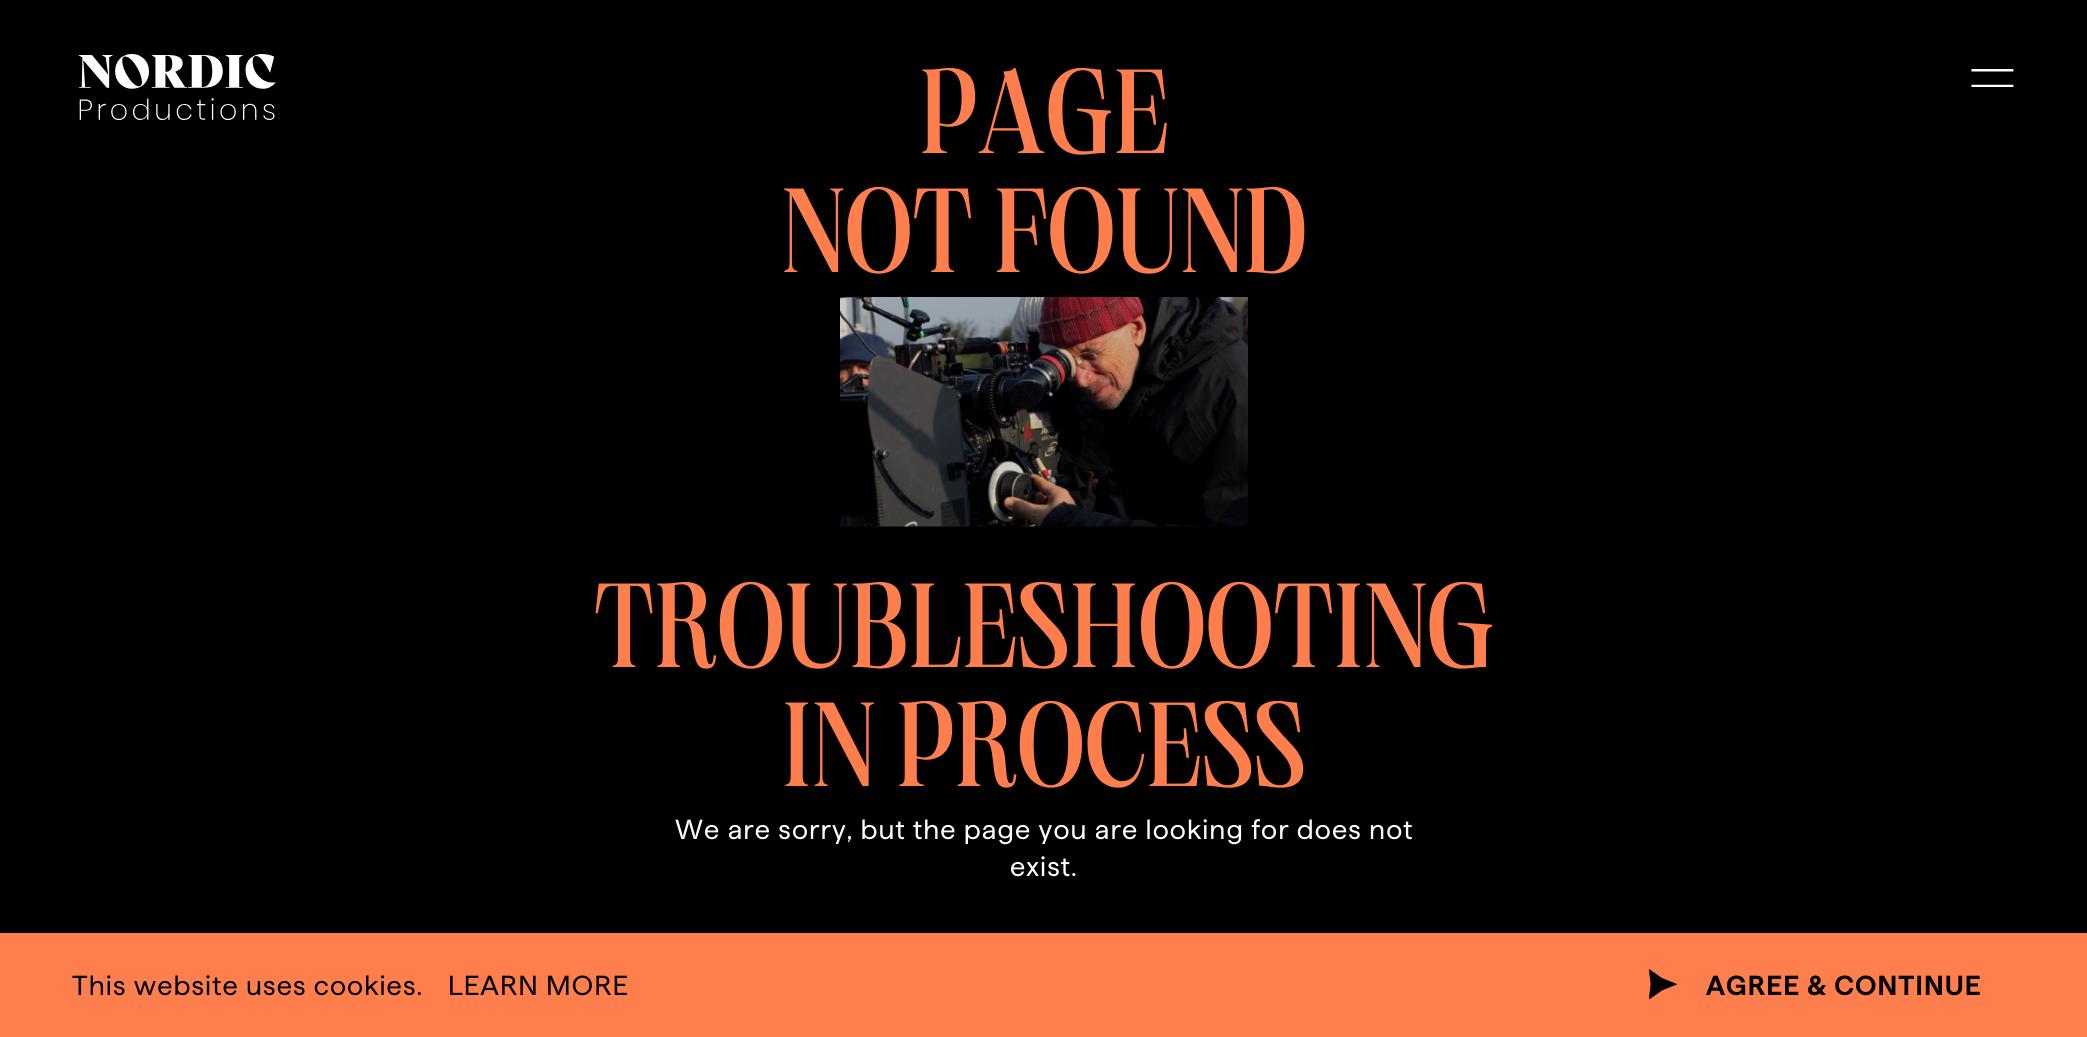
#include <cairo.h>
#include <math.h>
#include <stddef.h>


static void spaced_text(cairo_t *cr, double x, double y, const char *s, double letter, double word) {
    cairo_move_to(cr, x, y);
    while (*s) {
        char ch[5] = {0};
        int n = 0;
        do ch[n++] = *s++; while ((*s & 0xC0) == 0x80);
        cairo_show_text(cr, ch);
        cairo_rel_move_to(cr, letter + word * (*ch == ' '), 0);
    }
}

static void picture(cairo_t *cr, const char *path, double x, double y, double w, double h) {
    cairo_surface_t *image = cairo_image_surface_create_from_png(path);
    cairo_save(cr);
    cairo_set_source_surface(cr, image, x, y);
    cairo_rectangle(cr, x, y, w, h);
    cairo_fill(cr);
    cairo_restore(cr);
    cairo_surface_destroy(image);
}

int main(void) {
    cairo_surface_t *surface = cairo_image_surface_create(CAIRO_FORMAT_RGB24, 2087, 1037);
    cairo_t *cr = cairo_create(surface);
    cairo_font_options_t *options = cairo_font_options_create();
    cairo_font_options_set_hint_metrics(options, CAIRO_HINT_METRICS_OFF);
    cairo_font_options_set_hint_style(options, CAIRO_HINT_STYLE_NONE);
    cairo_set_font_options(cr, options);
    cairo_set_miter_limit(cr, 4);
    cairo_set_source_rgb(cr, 0, 0, 0);
    cairo_paint(cr);
    picture(cr, "img1.png", 78, 54, 198, 66);
    picture(cr, "img2.png", 1971, 69, 43, 18);
    cairo_select_font_face(cr, "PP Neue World", CAIRO_FONT_SLANT_NORMAL, CAIRO_FONT_WEIGHT_NORMAL);
    cairo_set_font_size(cr, 119.25);
    cairo_set_source_rgb(cr, 1, 0.494, 0.306);
    cairo_move_to(cr, 919, 153);
    cairo_show_text(cr, "PAGE");
    cairo_move_to(cr, 781, 272);
    cairo_show_text(cr, "NOT FOUND");
    picture(cr, "img3.png", 840, 297, 408, 230);
    cairo_move_to(cr, 594, 667);
    cairo_show_text(cr, "TROUBLESHOOTING");
    cairo_move_to(cr, 782, 786);
    cairo_show_text(cr, "IN PROCESS");
    cairo_select_font_face(cr, "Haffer", CAIRO_FONT_SLANT_NORMAL, CAIRO_FONT_WEIGHT_NORMAL);
    cairo_set_font_size(cr, 27.55);
    cairo_set_source_rgb(cr, 1, 1, 1);
    spaced_text(cr, 675, 839, "We are sorry, but the page you are looking for does not", 1.1, 0);
    spaced_text(cr, 1010, 876, "exist.", 1.1, 0);
    cairo_set_source_rgb(cr, 1, 0.494, 0.306);
    cairo_rectangle(cr, 0, 933, 2087, 104);
    cairo_fill(cr);
    cairo_set_source_rgb(cr, 0, 0, 0);
    spaced_text(cr, 72, 995, "This website uses cookies.", 1.1, 0);
    spaced_text(cr, 448, 995, "LEARN MORE", 1.1, 0);
    picture(cr, "img4.png", 1649, 969, 28, 31);
    picture(cr, "img5.png", 1649, 969, 28, 31);
    picture(cr, "img6.png", 1649, 969, 28, 30);
    cairo_select_font_face(cr, "Haffer SemiBold", CAIRO_FONT_SLANT_NORMAL, CAIRO_FONT_WEIGHT_NORMAL);
    spaced_text(cr, 1706, 995, "AGREE & CONTINUE", 1.1, 0);
    cairo_surface_write_to_png(surface, "page.png");
    cairo_font_options_destroy(options);
    cairo_destroy(cr);
    cairo_surface_destroy(surface);
    return 0;
}
